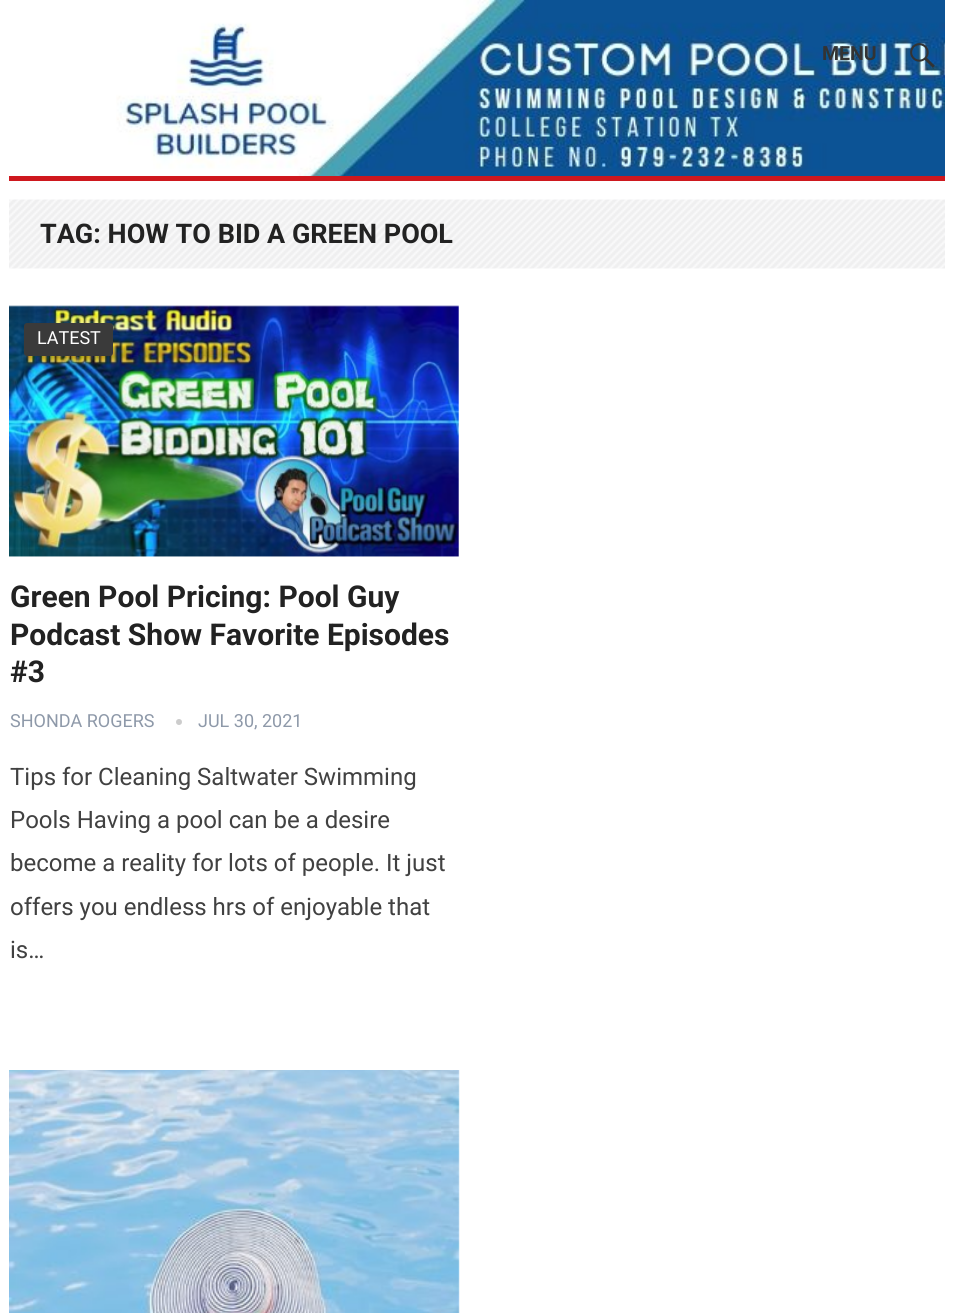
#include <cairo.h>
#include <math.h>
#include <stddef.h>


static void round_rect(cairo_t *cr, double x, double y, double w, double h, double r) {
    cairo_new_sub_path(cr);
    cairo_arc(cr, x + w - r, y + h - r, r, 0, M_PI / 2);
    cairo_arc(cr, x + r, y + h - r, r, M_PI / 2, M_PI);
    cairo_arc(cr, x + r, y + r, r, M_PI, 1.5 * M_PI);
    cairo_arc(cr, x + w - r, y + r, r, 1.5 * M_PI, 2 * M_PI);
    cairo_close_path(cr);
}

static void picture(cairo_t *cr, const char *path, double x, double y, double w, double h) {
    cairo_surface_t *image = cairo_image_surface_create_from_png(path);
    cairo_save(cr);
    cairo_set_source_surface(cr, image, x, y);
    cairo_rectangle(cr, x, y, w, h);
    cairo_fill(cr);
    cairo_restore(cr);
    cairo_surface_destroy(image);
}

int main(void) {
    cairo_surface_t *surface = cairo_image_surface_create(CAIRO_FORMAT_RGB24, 954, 1313);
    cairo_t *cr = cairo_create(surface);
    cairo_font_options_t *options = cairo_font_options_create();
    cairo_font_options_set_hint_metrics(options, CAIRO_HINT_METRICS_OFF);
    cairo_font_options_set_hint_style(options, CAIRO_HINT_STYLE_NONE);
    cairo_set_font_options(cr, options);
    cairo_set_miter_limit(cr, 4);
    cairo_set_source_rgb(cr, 1, 1, 1);
    cairo_paint(cr);
    picture(cr, "img1.png", 116, 0, 829, 176);
    cairo_set_source_rgb(cr, 0.808, 0.094, 0.118);
    cairo_rectangle(cr, 9, 176, 936, 5);
    cairo_fill(cr);
    cairo_select_font_face(cr, "Roboto", CAIRO_FONT_SLANT_NORMAL, CAIRO_FONT_WEIGHT_BOLD);
    cairo_set_font_size(cr, 19.5);
    cairo_set_source_rgb(cr, 0.2, 0.2, 0.2);
    cairo_move_to(cr, 822, 60);
    cairo_show_text(cr, "MENU");
    picture(cr, "img2.png", 910, 43, 25, 25);
    picture(cr, "img3.png", 9, 199, 936, 70);
    cairo_set_font_size(cr, 27);
    cairo_set_source_rgb(cr, 0.133, 0.133, 0.133);
    cairo_move_to(cr, 40, 243);
    cairo_show_text(cr, "TAG: HOW TO BID A GREEN POOL");
    picture(cr, "img4.png", 9, 305, 450, 252);
    cairo_set_source_rgb(cr, 0.227, 0.227, 0.227);
    round_rect(cr, 24, 323, 89, 33, 3);
    cairo_fill(cr);
    cairo_select_font_face(cr, "Roboto", CAIRO_FONT_SLANT_NORMAL, CAIRO_FONT_WEIGHT_NORMAL);
    cairo_set_font_size(cr, 18);
    cairo_set_source_rgb(cr, 1, 1, 1);
    cairo_move_to(cr, 37, 344);
    cairo_show_text(cr, "LATEST");
    cairo_select_font_face(cr, "Roboto", CAIRO_FONT_SLANT_NORMAL, CAIRO_FONT_WEIGHT_BOLD);
    cairo_set_font_size(cr, 30);
    cairo_set_source_rgb(cr, 0.133, 0.133, 0.133);
    cairo_move_to(cr, 10, 607);
    cairo_show_text(cr, "Green Pool Pricing: Pool Guy");
    cairo_move_to(cr, 10, 645);
    cairo_show_text(cr, "Podcast Show Favorite Episodes");
    cairo_move_to(cr, 10, 682);
    cairo_show_text(cr, "#3");
    cairo_select_font_face(cr, "Roboto", CAIRO_FONT_SLANT_NORMAL, CAIRO_FONT_WEIGHT_NORMAL);
    cairo_set_font_size(cr, 18);
    cairo_set_source_rgb(cr, 0.557, 0.6, 0.663);
    cairo_move_to(cr, 10, 727);
    cairo_show_text(cr, "SHONDA ROGERS");
    cairo_set_source_rgb(cr, 0.8, 0.8, 0.8);
    cairo_new_path(cr);
    cairo_arc(cr, 179, 722, 3, 0, 2 * M_PI);
    cairo_fill(cr);
    cairo_set_source_rgb(cr, 0.557, 0.6, 0.663);
    cairo_move_to(cr, 198, 727);
    cairo_show_text(cr, "JUL 30, 2021");
    cairo_set_font_size(cr, 24);
    cairo_set_source_rgb(cr, 0.255, 0.255, 0.255);
    cairo_move_to(cr, 10, 785);
    cairo_show_text(cr, "Tips for Cleaning Saltwater Swimming");
    cairo_move_to(cr, 10, 828);
    cairo_show_text(cr, "Pools Having a pool can be a desire");
    cairo_move_to(cr, 10, 871);
    cairo_show_text(cr, "become a reality for lots of people. It just");
    cairo_move_to(cr, 10, 915);
    cairo_show_text(cr, "offers you endless hrs of enjoyable that");
    cairo_move_to(cr, 10, 958);
    cairo_show_text(cr, "is…");
    picture(cr, "img5.png", 9, 1070, 451, 243);
    cairo_surface_write_to_png(surface, "page.png");
    cairo_font_options_destroy(options);
    cairo_destroy(cr);
    cairo_surface_destroy(surface);
    return 0;
}
